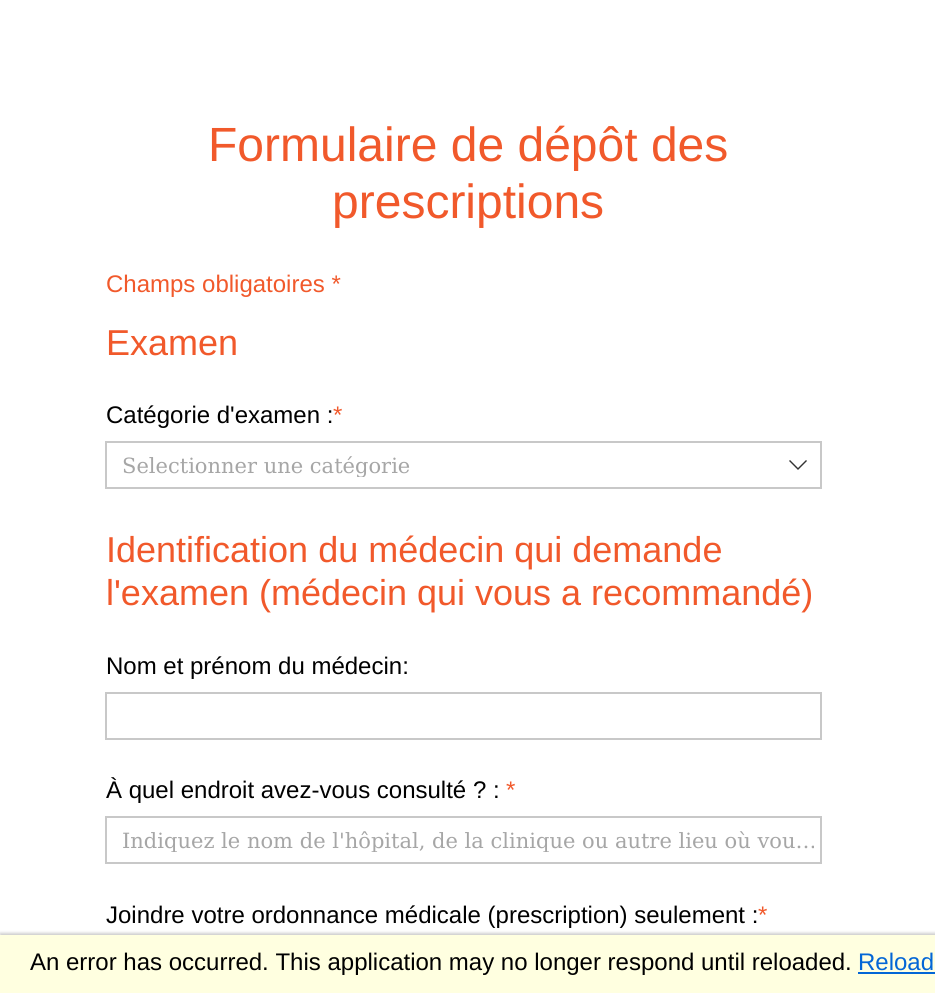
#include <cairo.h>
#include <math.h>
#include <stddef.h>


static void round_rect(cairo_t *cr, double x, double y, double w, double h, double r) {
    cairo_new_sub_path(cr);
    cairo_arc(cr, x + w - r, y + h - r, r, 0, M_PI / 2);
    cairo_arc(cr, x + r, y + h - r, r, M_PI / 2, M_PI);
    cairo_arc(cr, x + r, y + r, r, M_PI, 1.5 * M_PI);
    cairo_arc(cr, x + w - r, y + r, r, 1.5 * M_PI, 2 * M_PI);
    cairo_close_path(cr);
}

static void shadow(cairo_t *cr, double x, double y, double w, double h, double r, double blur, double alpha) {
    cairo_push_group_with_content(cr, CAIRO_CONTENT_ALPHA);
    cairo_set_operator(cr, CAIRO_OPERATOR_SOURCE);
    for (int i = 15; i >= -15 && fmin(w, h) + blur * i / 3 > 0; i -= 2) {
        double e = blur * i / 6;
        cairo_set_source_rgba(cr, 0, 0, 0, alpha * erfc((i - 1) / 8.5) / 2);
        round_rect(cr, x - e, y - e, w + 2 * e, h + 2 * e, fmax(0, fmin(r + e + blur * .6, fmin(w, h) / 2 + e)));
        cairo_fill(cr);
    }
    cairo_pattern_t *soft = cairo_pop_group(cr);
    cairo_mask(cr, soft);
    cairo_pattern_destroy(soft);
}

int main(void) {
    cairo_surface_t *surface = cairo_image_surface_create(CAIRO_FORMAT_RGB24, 935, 993);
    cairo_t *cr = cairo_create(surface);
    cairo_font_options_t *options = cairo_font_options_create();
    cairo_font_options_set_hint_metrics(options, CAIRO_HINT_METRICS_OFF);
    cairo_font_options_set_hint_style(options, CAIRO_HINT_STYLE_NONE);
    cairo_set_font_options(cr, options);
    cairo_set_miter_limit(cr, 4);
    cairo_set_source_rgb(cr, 1, 1, 1);
    cairo_paint(cr);
    cairo_select_font_face(cr, "Liberation Sans", CAIRO_FONT_SLANT_NORMAL, CAIRO_FONT_WEIGHT_NORMAL);
    cairo_set_font_size(cr, 48);
    cairo_set_source_rgb(cr, 0.945, 0.349, 0.169);
    cairo_move_to(cr, 208, 161);
    cairo_show_text(cr, "Formulaire de dépôt des");
    cairo_move_to(cr, 332, 218);
    cairo_show_text(cr, "prescriptions");
    cairo_set_font_size(cr, 24);
    cairo_move_to(cr, 106, 292);
    cairo_show_text(cr, "Champs obligatoires *");
    cairo_set_font_size(cr, 36);
    cairo_move_to(cr, 106, 355);
    cairo_show_text(cr, "Examen");
    cairo_set_font_size(cr, 24);
    cairo_set_source_rgb(cr, 0, 0, 0);
    cairo_move_to(cr, 106, 423);
    cairo_show_text(cr, "Catégorie d'examen :");
    cairo_set_source_rgb(cr, 0.945, 0.349, 0.169);
    cairo_move_to(cr, 333, 423);
    cairo_show_text(cr, "*");
    cairo_rectangle(cr, 106, 442, 715, 46);
    cairo_set_source_rgb(cr, 0.784, 0.784, 0.784);
    cairo_stroke(cr);
    cairo_save(cr);
    cairo_rectangle(cr, 122, 453, 654, 24);
    cairo_clip(cr);
    cairo_select_font_face(cr, "DejaVu Serif", CAIRO_FONT_SLANT_NORMAL, CAIRO_FONT_WEIGHT_NORMAL);
    cairo_set_font_size(cr, 21);
    cairo_set_source_rgb(cr, 0.651, 0.651, 0.651);
    cairo_move_to(cr, 122, 473);
    cairo_show_text(cr, "Selectionner une catégorie");
    cairo_restore(cr);
    cairo_set_source_rgb(cr, 0.2, 0.2, 0.2);
    cairo_new_path(cr);
    cairo_move_to(cr, 789, 461);
    cairo_line_to(cr, 798, 470);
    cairo_line_to(cr, 807, 461);
    cairo_line_to(cr, 806, 460);
    cairo_line_to(cr, 798, 468);
    cairo_line_to(cr, 790, 460);
    cairo_close_path(cr);
    cairo_fill(cr);
    cairo_set_font_size(cr, 36);
    cairo_set_source_rgb(cr, 0.945, 0.349, 0.169);
    cairo_move_to(cr, 106, 562);
    cairo_show_text(cr, "Identification du médecin qui demande");
    cairo_move_to(cr, 106, 605);
    cairo_show_text(cr, "l'examen (médecin qui vous a recommandé)");
    cairo_set_font_size(cr, 24);
    cairo_set_source_rgb(cr, 0, 0, 0);
    cairo_move_to(cr, 106, 674);
    cairo_show_text(cr, "Nom et prénom du médecin:");
    cairo_rectangle(cr, 106, 693, 715, 46);
    cairo_set_source_rgb(cr, 0.784, 0.784, 0.784);
    cairo_stroke(cr);
    cairo_set_source_rgb(cr, 0, 0, 0);
    cairo_move_to(cr, 106, 798);
    cairo_show_text(cr, "À quel endroit avez-vous consulté ? :");
    cairo_set_source_rgb(cr, 0.945, 0.349, 0.169);
    cairo_move_to(cr, 506, 798);
    cairo_show_text(cr, "*");
    cairo_rectangle(cr, 106, 817, 715, 46);
    cairo_set_source_rgb(cr, 0.784, 0.784, 0.784);
    cairo_stroke(cr);
    cairo_save(cr);
    cairo_rectangle(cr, 122, 828, 699, 24);
    cairo_clip(cr);
    cairo_select_font_face(cr, "DejaVu Serif", CAIRO_FONT_SLANT_NORMAL, CAIRO_FONT_WEIGHT_NORMAL);
    cairo_set_font_size(cr, 21);
    cairo_set_source_rgb(cr, 0.651, 0.651, 0.651);
    cairo_move_to(cr, 122, 848);
    cairo_show_text(cr, "Indiquez le nom de l'hôpital, de la clinique ou autre lieu où vou…");
    cairo_restore(cr);
    cairo_set_source_rgb(cr, 0, 0, 0);
    cairo_move_to(cr, 106, 923);
    cairo_show_text(cr, "Joindre votre ordonnance médicale (prescription) seulement :");
    cairo_set_source_rgb(cr, 0.945, 0.349, 0.169);
    cairo_move_to(cr, 758, 923);
    cairo_show_text(cr, "*");
    cairo_set_source_rgb(cr, 0, 0, 0);
    shadow(cr, 0, 933, 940, 59, 0, 1.5, 0.2);
    cairo_set_source_rgb(cr, 1, 1, 0.878);
    cairo_rectangle(cr, 0, 935, 935, 58);
    cairo_fill(cr);
    cairo_set_source_rgb(cr, 0, 0, 0);
    cairo_move_to(cr, 30, 970);
    cairo_show_text(cr, "An error has occurred. This application may no longer respond until reloaded.");
    cairo_set_source_rgb(cr, 0.012, 0.4, 0.839);
    cairo_move_to(cr, 858, 970);
    cairo_show_text(cr, "Reload");
    cairo_rectangle(cr, 858, 972, 77, 2);
    cairo_fill(cr);
    cairo_surface_write_to_png(surface, "page.png");
    cairo_font_options_destroy(options);
    cairo_destroy(cr);
    cairo_surface_destroy(surface);
    return 0;
}
